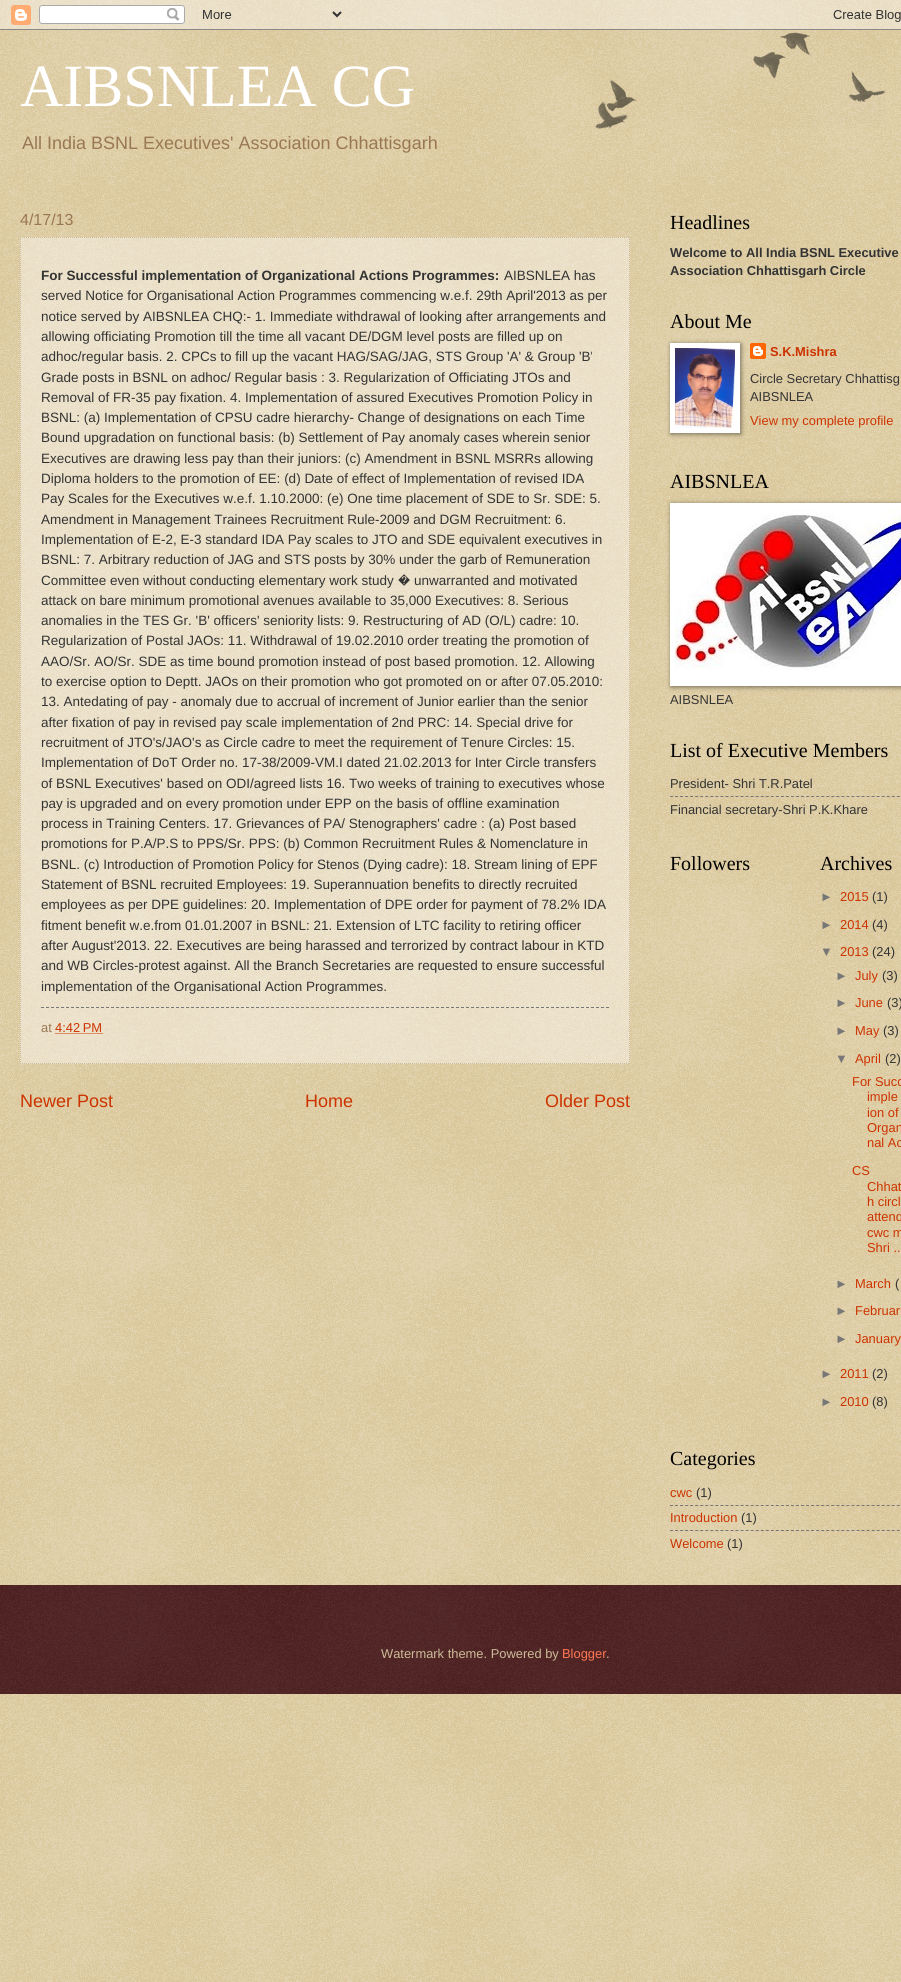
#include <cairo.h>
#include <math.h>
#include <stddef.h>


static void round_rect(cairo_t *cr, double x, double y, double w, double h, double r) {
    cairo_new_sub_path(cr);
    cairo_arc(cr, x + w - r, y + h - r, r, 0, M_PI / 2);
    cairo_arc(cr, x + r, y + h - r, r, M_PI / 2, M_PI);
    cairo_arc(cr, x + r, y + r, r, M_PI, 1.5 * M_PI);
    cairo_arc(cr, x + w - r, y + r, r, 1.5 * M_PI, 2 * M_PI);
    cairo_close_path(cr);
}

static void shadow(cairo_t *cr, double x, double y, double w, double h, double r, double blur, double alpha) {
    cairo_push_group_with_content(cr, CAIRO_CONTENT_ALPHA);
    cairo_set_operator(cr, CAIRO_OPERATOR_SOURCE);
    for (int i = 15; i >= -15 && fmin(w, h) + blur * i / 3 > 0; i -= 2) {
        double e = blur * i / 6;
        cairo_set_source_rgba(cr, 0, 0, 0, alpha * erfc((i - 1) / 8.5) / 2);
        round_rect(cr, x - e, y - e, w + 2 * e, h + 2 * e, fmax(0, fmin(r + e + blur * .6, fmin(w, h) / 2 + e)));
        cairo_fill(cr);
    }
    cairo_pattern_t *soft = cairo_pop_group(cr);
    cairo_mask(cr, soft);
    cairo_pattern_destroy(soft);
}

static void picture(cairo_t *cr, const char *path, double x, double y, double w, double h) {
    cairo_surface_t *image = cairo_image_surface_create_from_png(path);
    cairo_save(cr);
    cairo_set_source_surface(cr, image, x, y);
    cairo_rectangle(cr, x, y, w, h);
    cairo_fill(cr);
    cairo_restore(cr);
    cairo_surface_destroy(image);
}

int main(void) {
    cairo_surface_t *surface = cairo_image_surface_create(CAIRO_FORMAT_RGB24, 901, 1982);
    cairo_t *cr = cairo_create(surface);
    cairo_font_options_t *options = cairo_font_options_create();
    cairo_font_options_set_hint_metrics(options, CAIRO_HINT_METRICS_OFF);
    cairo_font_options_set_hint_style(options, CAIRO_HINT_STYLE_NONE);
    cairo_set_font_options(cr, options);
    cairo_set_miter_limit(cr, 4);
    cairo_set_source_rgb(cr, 0.753, 0.631, 0.329);
    cairo_paint(cr);
    picture(cr, "img1.png", 0, 0, 901, 1982);
    picture(cr, "img2.png", 0, 0, 901, 30);
    picture(cr, "img3.png", 595, 32, 291, 97);
    cairo_select_font_face(cr, "Liberation Serif", CAIRO_FONT_SLANT_NORMAL, CAIRO_FONT_WEIGHT_NORMAL);
    cairo_set_font_size(cr, 60);
    cairo_set_source_rgb(cr, 1, 1, 1);
    cairo_move_to(cr, 20, 106);
    cairo_show_text(cr, "AIBSNLEA CG");
    cairo_select_font_face(cr, "Liberation Sans", CAIRO_FONT_SLANT_NORMAL, CAIRO_FONT_WEIGHT_NORMAL);
    cairo_set_font_size(cr, 18);
    cairo_set_source_rgb(cr, 0.6, 0.467, 0.333);
    cairo_move_to(cr, 22, 149);
    cairo_show_text(cr, "All India BSNL Executives' Association Chhattisgarh");
    cairo_set_font_size(cr, 16);
    cairo_move_to(cr, 20, 225);
    cairo_show_text(cr, "4/17/13");
    cairo_set_source_rgba(cr, 1, 1, 1, 0.4);
    cairo_rectangle(cr, 20, 237, 610, 827);
    cairo_fill(cr);
    cairo_new_path(cr);
    cairo_move_to(cr, 20, 237.5);
    cairo_line_to(cr, 630, 237.5);
    cairo_set_source_rgb(cr, 0.8, 0.733, 0.6);
    cairo_set_line_width(cr, 1);
    cairo_set_dash(cr, (double[]){1, 1}, 2, 0);
    cairo_stroke(cr);
    cairo_new_path(cr);
    cairo_move_to(cr, 629.5, 237);
    cairo_line_to(cr, 629.5, 1064);
    cairo_stroke(cr);
    cairo_new_path(cr);
    cairo_move_to(cr, 20, 1063.5);
    cairo_line_to(cr, 630, 1063.5);
    cairo_stroke(cr);
    cairo_new_path(cr);
    cairo_move_to(cr, 20.5, 237);
    cairo_line_to(cr, 20.5, 1064);
    cairo_stroke(cr);
    cairo_select_font_face(cr, "Liberation Sans", CAIRO_FONT_SLANT_NORMAL, CAIRO_FONT_WEIGHT_BOLD);
    cairo_set_font_size(cr, 13.5);
    cairo_set_source_rgb(cr, 0.2, 0.2, 0.2);
    cairo_move_to(cr, 41, 280);
    cairo_show_text(cr, "For Successful implementation of Organizational Actions Programmes:");
    cairo_select_font_face(cr, "Liberation Sans", CAIRO_FONT_SLANT_NORMAL, CAIRO_FONT_WEIGHT_NORMAL);
    cairo_move_to(cr, 504, 280);
    cairo_show_text(cr, "AIBSNLEA has");
    cairo_move_to(cr, 41, 300);
    cairo_show_text(cr, "served Notice for Organisational Action Programmes commencing w.e.f. 29th April'2013 as per");
    cairo_move_to(cr, 41, 321);
    cairo_show_text(cr, "notice served by AIBSNLEA CHQ:- 1. Immediate withdrawal of looking after arrangements and");
    cairo_move_to(cr, 41, 341);
    cairo_show_text(cr, "allowing officiating Promotion till the time all vacant DE/DGM level posts are filled up on");
    cairo_move_to(cr, 41, 361);
    cairo_show_text(cr, "adhoc/regular basis. 2. CPCs to fill up the vacant HAG/SAG/JAG, STS Group 'A' & Group 'B'");
    cairo_move_to(cr, 41, 382);
    cairo_show_text(cr, "Grade posts in BSNL on adhoc/ Regular basis : 3. Regularization of Officiating JTOs and");
    cairo_move_to(cr, 41, 402);
    cairo_show_text(cr, "Removal of FR-35 pay fixation. 4. Implementation of assured Executives Promotion Policy in");
    cairo_move_to(cr, 41, 422);
    cairo_show_text(cr, "BSNL: (a) Implementation of CPSU cadre hierarchy- Change of designations on each Time");
    cairo_move_to(cr, 41, 442);
    cairo_show_text(cr, "Bound upgradation on functional basis: (b) Settlement of Pay anomaly cases wherein senior");
    cairo_move_to(cr, 41, 463);
    cairo_show_text(cr, "Executives are drawing less pay than their juniors: (c) Amendment in BSNL MSRRs allowing");
    cairo_move_to(cr, 41, 483);
    cairo_show_text(cr, "Diploma holders to the promotion of EE: (d) Date of effect of Implementation of revised IDA");
    cairo_move_to(cr, 41, 503);
    cairo_show_text(cr, "Pay Scales for the Executives w.e.f. 1.10.2000: (e) One time placement of SDE to Sr. SDE: 5.");
    cairo_move_to(cr, 41, 524);
    cairo_show_text(cr, "Amendment in Management Trainees Recruitment Rule-2009 and DGM Recruitment: 6.");
    cairo_move_to(cr, 41, 544);
    cairo_show_text(cr, "Implementation of E-2, E-3 standard IDA Pay scales to JTO and SDE equivalent executives in");
    cairo_move_to(cr, 41, 564);
    cairo_show_text(cr, "BSNL: 7. Arbitrary reduction of JAG and STS posts by 30% under the garb of Remuneration");
    cairo_move_to(cr, 41, 585);
    cairo_show_text(cr, "Committee even without conducting elementary work study");
    cairo_select_font_face(cr, "FreeSans", CAIRO_FONT_SLANT_NORMAL, CAIRO_FONT_WEIGHT_NORMAL);
    cairo_move_to(cr, 398, 585);
    cairo_show_text(cr, "�");
    cairo_select_font_face(cr, "Liberation Sans", CAIRO_FONT_SLANT_NORMAL, CAIRO_FONT_WEIGHT_NORMAL);
    cairo_move_to(cr, 414, 585);
    cairo_show_text(cr, "unwarranted and motivated");
    cairo_move_to(cr, 41, 605);
    cairo_show_text(cr, "attack on bare minimum promotional avenues available to 35,000 Executives: 8. Serious");
    cairo_move_to(cr, 41, 625);
    cairo_show_text(cr, "anomalies in the TES Gr. 'B' officers' seniority lists: 9. Restructuring of AD (O/L) cadre: 10.");
    cairo_move_to(cr, 41, 645);
    cairo_show_text(cr, "Regularization of Postal JAOs: 11. Withdrawal of 19.02.2010 order treating the promotion of");
    cairo_move_to(cr, 41, 666);
    cairo_show_text(cr, "AAO/Sr. AO/Sr. SDE as time bound promotion instead of post based promotion. 12. Allowing");
    cairo_move_to(cr, 41, 686);
    cairo_show_text(cr, "to exercise option to Deptt. JAOs on their promotion who got promoted on or after 07.05.2010:");
    cairo_move_to(cr, 41, 706);
    cairo_show_text(cr, "13. Antedating of pay - anomaly due to accrual of increment of Junior earlier than the senior");
    cairo_move_to(cr, 41, 727);
    cairo_show_text(cr, "after fixation of pay in revised pay scale implementation of 2nd PRC: 14. Special drive for");
    cairo_move_to(cr, 41, 747);
    cairo_show_text(cr, "recruitment of JTO's/JAO's as Circle cadre to meet the requirement of Tenure Circles: 15.");
    cairo_move_to(cr, 41, 767);
    cairo_show_text(cr, "Implementation of DoT Order no. 17-38/2009-VM.I dated 21.02.2013 for Inter Circle transfers");
    cairo_move_to(cr, 41, 788);
    cairo_show_text(cr, "of BSNL Executives' based on ODI/agreed lists 16. Two weeks of training to executives whose");
    cairo_move_to(cr, 41, 808);
    cairo_show_text(cr, "pay is upgraded and on every promotion under EPP on the basis of offline examination");
    cairo_move_to(cr, 41, 828);
    cairo_show_text(cr, "process in Training Centers. 17. Grievances of PA/ Stenographers' cadre : (a) Post based");
    cairo_move_to(cr, 41, 848);
    cairo_show_text(cr, "promotions for P.A/P.S to PPS/Sr. PPS: (b) Common Recruitment Rules & Nomenclature in");
    cairo_move_to(cr, 41, 869);
    cairo_show_text(cr, "BSNL. (c) Introduction of Promotion Policy for Stenos (Dying cadre): 18. Stream lining of EPF");
    cairo_move_to(cr, 41, 889);
    cairo_show_text(cr, "Statement of BSNL recruited Employees: 19. Superannuation benefits to directly recruited");
    cairo_move_to(cr, 41, 909);
    cairo_show_text(cr, "employees as per DPE guidelines: 20. Implementation of DPE order for payment of 78.2% IDA");
    cairo_move_to(cr, 41, 930);
    cairo_show_text(cr, "fitment benefit w.e.from 01.01.2007 in BSNL: 21. Extension of LTC facility to retiring officer");
    cairo_move_to(cr, 41, 950);
    cairo_show_text(cr, "after August'2013. 22. Executives are being harassed and terrorized by contract labour in KTD");
    cairo_move_to(cr, 41, 970);
    cairo_show_text(cr, "and WB Circles-protest against. All the Branch Secretaries are requested to ensure successful");
    cairo_move_to(cr, 41, 991);
    cairo_show_text(cr, "implementation of the Organisational Action Programmes.");
    cairo_new_path(cr);
    cairo_move_to(cr, 41, 1007.5);
    cairo_line_to(cr, 609, 1007.5);
    cairo_set_source_rgb(cr, 0.467, 0.467, 0.467);
    cairo_set_dash(cr, (double[]){3, 2}, 2, 0);
    cairo_stroke(cr);
    cairo_set_font_size(cr, 12.9);
    cairo_set_source_rgb(cr, 0.6, 0.467, 0.333);
    cairo_move_to(cr, 41, 1032);
    cairo_show_text(cr, "at");
    cairo_set_source_rgb(cr, 0.8, 0.2, 0);
    cairo_move_to(cr, 55, 1032);
    cairo_show_text(cr, "4:42 PM");
    cairo_new_path(cr);
    cairo_move_to(cr, 55.5, 1033.5);
    cairo_line_to(cr, 102.5, 1033.5);
    cairo_set_dash(cr, (double[]){1, 1}, 2, 0);
    cairo_stroke(cr);
    cairo_set_font_size(cr, 18);
    cairo_move_to(cr, 20, 1107);
    cairo_show_text(cr, "Newer Post");
    cairo_move_to(cr, 305, 1107);
    cairo_show_text(cr, "Home");
    cairo_move_to(cr, 545, 1107);
    cairo_show_text(cr, "Older Post");
    cairo_select_font_face(cr, "Liberation Serif", CAIRO_FONT_SLANT_NORMAL, CAIRO_FONT_WEIGHT_NORMAL);
    cairo_set_font_size(cr, 20);
    cairo_set_source_rgb(cr, 0, 0, 0);
    cairo_move_to(cr, 670, 229);
    cairo_show_text(cr, "Headlines");
    cairo_select_font_face(cr, "Liberation Sans", CAIRO_FONT_SLANT_NORMAL, CAIRO_FONT_WEIGHT_BOLD);
    cairo_set_font_size(cr, 12.9);
    cairo_set_source_rgb(cr, 0.2, 0.2, 0.2);
    cairo_move_to(cr, 670, 257);
    cairo_show_text(cr, "Welcome to All India BSNL Executive");
    cairo_move_to(cr, 670, 275);
    cairo_show_text(cr, "Association Chhattisgarh Circle");
    cairo_select_font_face(cr, "Liberation Serif", CAIRO_FONT_SLANT_NORMAL, CAIRO_FONT_WEIGHT_NORMAL);
    cairo_set_font_size(cr, 20);
    cairo_set_source_rgb(cr, 0, 0, 0);
    cairo_move_to(cr, 670, 328);
    cairo_show_text(cr, "About Me");
    cairo_set_source_rgb(cr, 0, 0, 0);
    shadow(cr, 671, 344, 70, 90, 0, 2.5, 0.5);
    cairo_set_source_rgb(cr, 1, 1, 1);
    cairo_rectangle(cr, 670, 343, 70, 90);
    cairo_fill(cr);
    picture(cr, "img4.png", 675, 348, 60, 80);
    picture(cr, "img5.png", 750, 343, 16, 16);
    cairo_select_font_face(cr, "Liberation Sans", CAIRO_FONT_SLANT_NORMAL, CAIRO_FONT_WEIGHT_BOLD);
    cairo_set_font_size(cr, 12.9);
    cairo_set_source_rgb(cr, 0.8, 0.2, 0);
    cairo_move_to(cr, 770, 356);
    cairo_show_text(cr, "S.K.Mishra");
    cairo_select_font_face(cr, "Liberation Sans", CAIRO_FONT_SLANT_NORMAL, CAIRO_FONT_WEIGHT_NORMAL);
    cairo_set_source_rgb(cr, 0.2, 0.2, 0.2);
    cairo_move_to(cr, 750, 383);
    cairo_show_text(cr, "Circle Secretary Chhattisg");
    cairo_move_to(cr, 750, 401);
    cairo_show_text(cr, "AIBSNLEA");
    cairo_set_source_rgb(cr, 0.8, 0.2, 0);
    cairo_move_to(cr, 750, 425);
    cairo_show_text(cr, "View my complete profile");
    cairo_select_font_face(cr, "Liberation Serif", CAIRO_FONT_SLANT_NORMAL, CAIRO_FONT_WEIGHT_NORMAL);
    cairo_set_font_size(cr, 20);
    cairo_set_source_rgb(cr, 0, 0, 0);
    cairo_move_to(cr, 670, 488);
    cairo_show_text(cr, "AIBSNLEA");
    cairo_set_source_rgb(cr, 0, 0, 0);
    shadow(cr, 671, 504, 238, 183, 0, 2.5, 0.5);
    cairo_set_source_rgb(cr, 1, 1, 1);
    cairo_rectangle(cr, 670, 503, 231, 183);
    cairo_fill(cr);
    picture(cr, "img6.png", 675, 508, 226, 162);
    cairo_select_font_face(cr, "Liberation Sans", CAIRO_FONT_SLANT_NORMAL, CAIRO_FONT_WEIGHT_NORMAL);
    cairo_set_font_size(cr, 12.9);
    cairo_set_source_rgb(cr, 0.2, 0.2, 0.2);
    cairo_move_to(cr, 670, 704);
    cairo_show_text(cr, "AIBSNLEA");
    cairo_select_font_face(cr, "Liberation Serif", CAIRO_FONT_SLANT_NORMAL, CAIRO_FONT_WEIGHT_NORMAL);
    cairo_set_font_size(cr, 20);
    cairo_set_source_rgb(cr, 0, 0, 0);
    cairo_move_to(cr, 670, 757);
    cairo_show_text(cr, "List of Executive Members");
    cairo_select_font_face(cr, "Liberation Sans", CAIRO_FONT_SLANT_NORMAL, CAIRO_FONT_WEIGHT_NORMAL);
    cairo_set_font_size(cr, 12.9);
    cairo_set_source_rgb(cr, 0.2, 0.2, 0.2);
    cairo_move_to(cr, 670, 788);
    cairo_show_text(cr, "President- Shri T.R.Patel");
    cairo_new_path(cr);
    cairo_move_to(cr, 670, 796.5);
    cairo_line_to(cr, 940, 796.5);
    cairo_set_source_rgb(cr, 0.467, 0.467, 0.467);
    cairo_set_dash(cr, (double[]){3, 2.04}, 2, 0);
    cairo_stroke(cr);
    cairo_set_source_rgb(cr, 0.2, 0.2, 0.2);
    cairo_move_to(cr, 670, 814);
    cairo_show_text(cr, "Financial secretary-Shri P.K.Khare");
    cairo_select_font_face(cr, "Liberation Serif", CAIRO_FONT_SLANT_NORMAL, CAIRO_FONT_WEIGHT_NORMAL);
    cairo_set_font_size(cr, 20);
    cairo_set_source_rgb(cr, 0, 0, 0);
    cairo_move_to(cr, 670, 870);
    cairo_show_text(cr, "Followers");
    cairo_move_to(cr, 820, 870);
    cairo_show_text(cr, "Archives");
    cairo_select_font_face(cr, "Liberation Sans", CAIRO_FONT_SLANT_NORMAL, CAIRO_FONT_WEIGHT_NORMAL);
    cairo_set_font_size(cr, 12.9);
    cairo_set_source_rgb(cr, 0.467, 0.467, 0.467);
    cairo_move_to(cr, 820, 901);
    cairo_show_text(cr, "►");
    cairo_set_source_rgb(cr, 0.8, 0.2, 0);
    cairo_move_to(cr, 840, 901);
    cairo_show_text(cr, "2015");
    cairo_set_source_rgb(cr, 0.2, 0.2, 0.2);
    cairo_move_to(cr, 872, 901);
    cairo_show_text(cr, "(1)");
    cairo_set_source_rgb(cr, 0.467, 0.467, 0.467);
    cairo_move_to(cr, 820, 929);
    cairo_show_text(cr, "►");
    cairo_set_source_rgb(cr, 0.8, 0.2, 0);
    cairo_move_to(cr, 840, 929);
    cairo_show_text(cr, "2014");
    cairo_set_source_rgb(cr, 0.2, 0.2, 0.2);
    cairo_move_to(cr, 872, 929);
    cairo_show_text(cr, "(4)");
    cairo_set_source_rgb(cr, 0.467, 0.467, 0.467);
    cairo_move_to(cr, 820, 956);
    cairo_show_text(cr, "▼");
    cairo_set_source_rgb(cr, 0.8, 0.2, 0);
    cairo_move_to(cr, 840, 956);
    cairo_show_text(cr, "2013");
    cairo_set_source_rgb(cr, 0.2, 0.2, 0.2);
    cairo_move_to(cr, 872, 956);
    cairo_show_text(cr, "(24)");
    cairo_set_source_rgb(cr, 0.467, 0.467, 0.467);
    cairo_move_to(cr, 835, 980);
    cairo_show_text(cr, "►");
    cairo_set_source_rgb(cr, 0.8, 0.2, 0);
    cairo_move_to(cr, 855, 980);
    cairo_show_text(cr, "July");
    cairo_set_source_rgb(cr, 0.2, 0.2, 0.2);
    cairo_move_to(cr, 882, 980);
    cairo_show_text(cr, "(3)");
    cairo_set_source_rgb(cr, 0.467, 0.467, 0.467);
    cairo_move_to(cr, 835, 1007);
    cairo_show_text(cr, "►");
    cairo_set_source_rgb(cr, 0.8, 0.2, 0);
    cairo_move_to(cr, 855, 1007);
    cairo_show_text(cr, "June");
    cairo_set_source_rgb(cr, 0.2, 0.2, 0.2);
    cairo_move_to(cr, 887, 1007);
    cairo_show_text(cr, "(3)");
    cairo_set_source_rgb(cr, 0.467, 0.467, 0.467);
    cairo_move_to(cr, 835, 1035);
    cairo_show_text(cr, "►");
    cairo_set_source_rgb(cr, 0.8, 0.2, 0);
    cairo_move_to(cr, 855, 1035);
    cairo_show_text(cr, "May");
    cairo_set_source_rgb(cr, 0.2, 0.2, 0.2);
    cairo_move_to(cr, 883, 1035);
    cairo_show_text(cr, "(3)");
    cairo_set_source_rgb(cr, 0.467, 0.467, 0.467);
    cairo_move_to(cr, 835, 1063);
    cairo_show_text(cr, "▼");
    cairo_set_source_rgb(cr, 0.8, 0.2, 0);
    cairo_move_to(cr, 855, 1063);
    cairo_show_text(cr, "April");
    cairo_set_source_rgb(cr, 0.2, 0.2, 0.2);
    cairo_move_to(cr, 885, 1063);
    cairo_show_text(cr, "(2)");
    cairo_set_source_rgb(cr, 0.8, 0.2, 0);
    cairo_move_to(cr, 852, 1086);
    cairo_show_text(cr, "For Succ");
    cairo_move_to(cr, 867, 1101);
    cairo_show_text(cr, "imple");
    cairo_move_to(cr, 867, 1117);
    cairo_show_text(cr, "ion of");
    cairo_move_to(cr, 867, 1132);
    cairo_show_text(cr, "Organ");
    cairo_move_to(cr, 867, 1147);
    cairo_show_text(cr, "nal Ac");
    cairo_move_to(cr, 852, 1175);
    cairo_show_text(cr, "CS");
    cairo_move_to(cr, 867, 1191);
    cairo_show_text(cr, "Chhat");
    cairo_move_to(cr, 867, 1206);
    cairo_show_text(cr, "h circl");
    cairo_move_to(cr, 867, 1221);
    cairo_show_text(cr, "attend");
    cairo_move_to(cr, 867, 1237);
    cairo_show_text(cr, "cwc m");
    cairo_move_to(cr, 867, 1252);
    cairo_show_text(cr, "Shri ..");
    cairo_set_source_rgb(cr, 0.467, 0.467, 0.467);
    cairo_move_to(cr, 835, 1288);
    cairo_show_text(cr, "►");
    cairo_set_source_rgb(cr, 0.8, 0.2, 0);
    cairo_move_to(cr, 855, 1288);
    cairo_show_text(cr, "March");
    cairo_set_source_rgb(cr, 0.2, 0.2, 0.2);
    cairo_move_to(cr, 895, 1288);
    cairo_show_text(cr, "(");
    cairo_set_source_rgb(cr, 0.467, 0.467, 0.467);
    cairo_move_to(cr, 835, 1315);
    cairo_show_text(cr, "►");
    cairo_set_source_rgb(cr, 0.8, 0.2, 0);
    cairo_move_to(cr, 855, 1315);
    cairo_show_text(cr, "Februar");
    cairo_set_source_rgb(cr, 0.467, 0.467, 0.467);
    cairo_move_to(cr, 835, 1343);
    cairo_show_text(cr, "►");
    cairo_set_source_rgb(cr, 0.8, 0.2, 0);
    cairo_move_to(cr, 855, 1343);
    cairo_show_text(cr, "January");
    cairo_set_source_rgb(cr, 0.467, 0.467, 0.467);
    cairo_move_to(cr, 820, 1378);
    cairo_show_text(cr, "►");
    cairo_set_source_rgb(cr, 0.8, 0.2, 0);
    cairo_move_to(cr, 840, 1378);
    cairo_show_text(cr, "2011");
    cairo_set_source_rgb(cr, 0.2, 0.2, 0.2);
    cairo_move_to(cr, 872, 1378);
    cairo_show_text(cr, "(2)");
    cairo_set_source_rgb(cr, 0.467, 0.467, 0.467);
    cairo_move_to(cr, 820, 1406);
    cairo_show_text(cr, "►");
    cairo_set_source_rgb(cr, 0.8, 0.2, 0);
    cairo_move_to(cr, 840, 1406);
    cairo_show_text(cr, "2010");
    cairo_set_source_rgb(cr, 0.2, 0.2, 0.2);
    cairo_move_to(cr, 872, 1406);
    cairo_show_text(cr, "(8)");
    cairo_select_font_face(cr, "Liberation Serif", CAIRO_FONT_SLANT_NORMAL, CAIRO_FONT_WEIGHT_NORMAL);
    cairo_set_font_size(cr, 20);
    cairo_set_source_rgb(cr, 0, 0, 0);
    cairo_move_to(cr, 670, 1465);
    cairo_show_text(cr, "Categories");
    cairo_select_font_face(cr, "Liberation Sans", CAIRO_FONT_SLANT_NORMAL, CAIRO_FONT_WEIGHT_NORMAL);
    cairo_set_font_size(cr, 12.9);
    cairo_set_source_rgb(cr, 0.8, 0.2, 0);
    cairo_move_to(cr, 670, 1497);
    cairo_show_text(cr, "cwc");
    cairo_set_source_rgb(cr, 0.2, 0.2, 0.2);
    cairo_move_to(cr, 696, 1497);
    cairo_show_text(cr, "(1)");
    cairo_new_path(cr);
    cairo_move_to(cr, 670, 1505.5);
    cairo_line_to(cr, 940, 1505.5);
    cairo_set_source_rgb(cr, 0.467, 0.467, 0.467);
    cairo_stroke(cr);
    cairo_set_source_rgb(cr, 0.8, 0.2, 0);
    cairo_move_to(cr, 670, 1522);
    cairo_show_text(cr, "Introduction");
    cairo_set_source_rgb(cr, 0.2, 0.2, 0.2);
    cairo_move_to(cr, 741, 1522);
    cairo_show_text(cr, "(1)");
    cairo_new_path(cr);
    cairo_move_to(cr, 670, 1530.5);
    cairo_line_to(cr, 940, 1530.5);
    cairo_set_source_rgb(cr, 0.467, 0.467, 0.467);
    cairo_stroke(cr);
    cairo_set_source_rgb(cr, 0.8, 0.2, 0);
    cairo_move_to(cr, 670, 1548);
    cairo_show_text(cr, "Welcome");
    cairo_set_source_rgb(cr, 0.2, 0.2, 0.2);
    cairo_move_to(cr, 727, 1548);
    cairo_show_text(cr, "(1)");
    cairo_set_source_rgb(cr, 0.2, 0, 0);
    cairo_rectangle(cr, 0, 1585, 901, 109);
    cairo_fill(cr);
    picture(cr, "img7.png", 0, 1585, 901, 109);
    cairo_set_source_rgb(cr, 0.8, 0.733, 0.6);
    cairo_move_to(cr, 381, 1658);
    cairo_show_text(cr, "Watermark theme. Powered by");
    cairo_set_source_rgb(cr, 1, 0.467, 0.333);
    cairo_move_to(cr, 562, 1658);
    cairo_show_text(cr, "Blogger");
    cairo_set_source_rgb(cr, 0.8, 0.733, 0.6);
    cairo_move_to(cr, 606, 1658);
    cairo_show_text(cr, ".");
    cairo_surface_write_to_png(surface, "page.png");
    cairo_font_options_destroy(options);
    cairo_destroy(cr);
    cairo_surface_destroy(surface);
    return 0;
}
